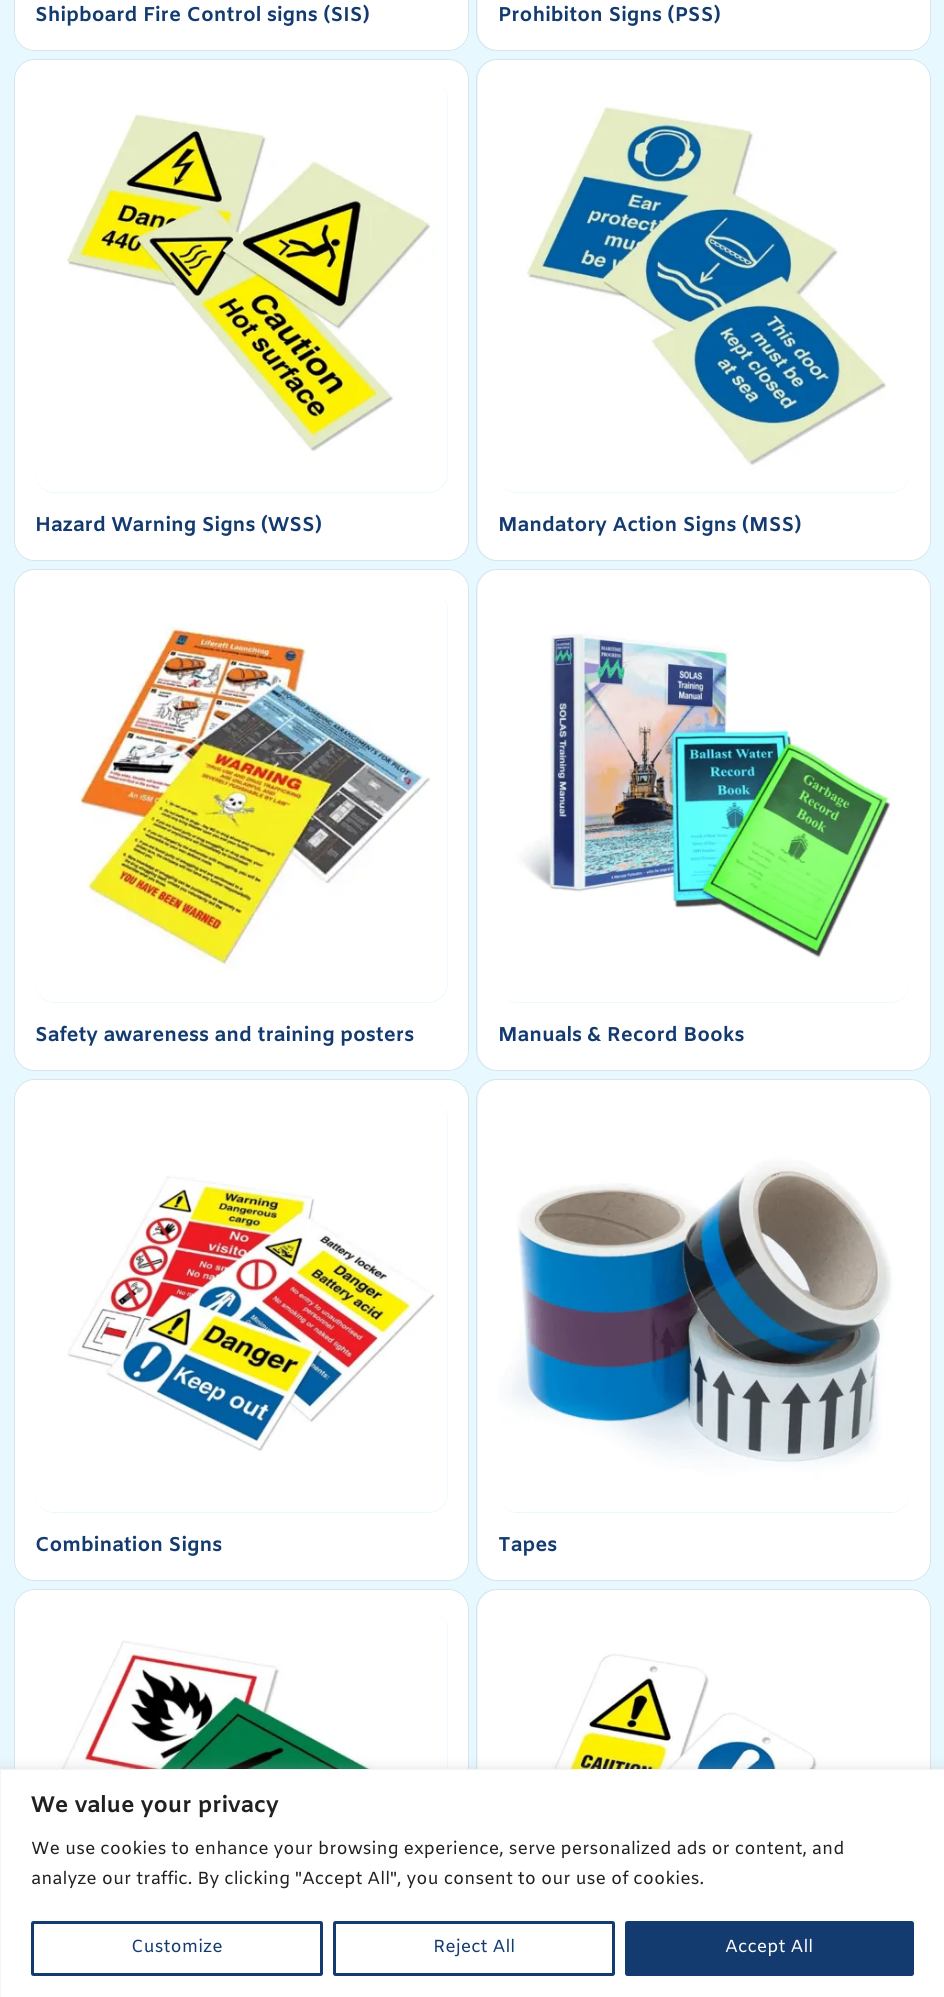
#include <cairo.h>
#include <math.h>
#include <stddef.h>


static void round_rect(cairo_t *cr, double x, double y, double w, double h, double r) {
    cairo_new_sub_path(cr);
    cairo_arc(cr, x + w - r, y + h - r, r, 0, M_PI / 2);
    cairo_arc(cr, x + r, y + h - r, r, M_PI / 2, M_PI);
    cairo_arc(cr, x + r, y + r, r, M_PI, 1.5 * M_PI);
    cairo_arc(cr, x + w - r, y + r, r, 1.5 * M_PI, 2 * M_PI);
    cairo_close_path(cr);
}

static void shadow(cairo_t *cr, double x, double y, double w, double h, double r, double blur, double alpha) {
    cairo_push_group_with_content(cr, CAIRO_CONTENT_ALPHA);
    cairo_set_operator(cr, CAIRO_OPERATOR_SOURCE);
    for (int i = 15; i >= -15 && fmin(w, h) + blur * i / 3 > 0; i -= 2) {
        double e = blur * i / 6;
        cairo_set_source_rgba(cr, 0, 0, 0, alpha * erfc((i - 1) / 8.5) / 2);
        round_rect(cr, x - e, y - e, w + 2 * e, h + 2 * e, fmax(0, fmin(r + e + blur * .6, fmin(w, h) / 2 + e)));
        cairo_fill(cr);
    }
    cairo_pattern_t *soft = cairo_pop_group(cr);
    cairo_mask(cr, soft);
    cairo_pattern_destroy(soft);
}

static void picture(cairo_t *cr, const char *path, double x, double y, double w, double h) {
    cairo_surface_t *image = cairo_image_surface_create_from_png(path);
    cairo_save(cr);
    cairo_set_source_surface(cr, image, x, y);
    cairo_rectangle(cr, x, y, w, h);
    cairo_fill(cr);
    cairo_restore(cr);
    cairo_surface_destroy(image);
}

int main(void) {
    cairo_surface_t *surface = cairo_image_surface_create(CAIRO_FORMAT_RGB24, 944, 1997);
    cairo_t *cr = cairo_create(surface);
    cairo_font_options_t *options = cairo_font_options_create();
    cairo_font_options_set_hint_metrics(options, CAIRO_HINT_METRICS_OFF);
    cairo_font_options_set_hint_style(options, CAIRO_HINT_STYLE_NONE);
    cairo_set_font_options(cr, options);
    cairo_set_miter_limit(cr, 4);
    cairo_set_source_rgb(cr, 0.91, 0.969, 1);
    cairo_paint(cr);
    round_rect(cr, 14.5, -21.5, 454, 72, 20.5);
    cairo_set_source_rgb(cr, 0.843, 0.894, 0.925);
    cairo_set_line_width(cr, 1);
    cairo_stroke(cr);
    cairo_set_source_rgb(cr, 1, 1, 1);
    round_rect(cr, 15, -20, 453, 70, 20);
    cairo_fill(cr);
    cairo_select_font_face(cr, "Amiko", CAIRO_FONT_SLANT_NORMAL, CAIRO_FONT_WEIGHT_BOLD);
    cairo_set_font_size(cr, 20);
    cairo_set_source_rgb(cr, 0.075, 0.231, 0.439);
    cairo_move_to(cr, 35, 21);
    cairo_show_text(cr, "Shipboard Fire Control signs (SIS)");
    round_rect(cr, 476.5, -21.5, 454, 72, 20.5);
    cairo_set_source_rgb(cr, 0.843, 0.894, 0.925);
    cairo_stroke(cr);
    cairo_set_source_rgb(cr, 1, 1, 1);
    round_rect(cr, 478, -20, 452, 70, 20);
    cairo_fill(cr);
    cairo_set_source_rgb(cr, 0.075, 0.231, 0.439);
    cairo_move_to(cr, 498, 21);
    cairo_show_text(cr, "Prohibiton Signs (PSS)");
    round_rect(cr, 14.5, 59.5, 454, 501, 20.5);
    cairo_set_source_rgb(cr, 0.843, 0.894, 0.925);
    cairo_stroke(cr);
    cairo_set_source_rgb(cr, 1, 1, 1);
    round_rect(cr, 15, 60, 453, 500, 20);
    cairo_fill(cr);
    cairo_set_source_rgb(cr, 0.91, 0.969, 1);
    round_rect(cr, 35, 80, 413, 413, 20);
    cairo_fill(cr);
    picture(cr, "img1.png", 35, 80, 413, 412);
    cairo_set_source_rgb(cr, 0.075, 0.231, 0.439);
    cairo_move_to(cr, 35, 531);
    cairo_show_text(cr, "Hazard Warning Signs (WSS)");
    round_rect(cr, 476.5, 59.5, 454, 501, 20.5);
    cairo_set_source_rgb(cr, 0.843, 0.894, 0.925);
    cairo_stroke(cr);
    cairo_set_source_rgb(cr, 1, 1, 1);
    round_rect(cr, 478, 60, 452, 500, 20);
    cairo_fill(cr);
    cairo_set_source_rgb(cr, 0.91, 0.969, 1);
    round_rect(cr, 498, 80, 412, 413, 20);
    cairo_fill(cr);
    picture(cr, "img2.png", 498, 80, 412, 412);
    cairo_set_source_rgb(cr, 0.075, 0.231, 0.439);
    cairo_move_to(cr, 498, 531);
    cairo_show_text(cr, "Mandatory Action Signs (MSS)");
    round_rect(cr, 14.5, 569.5, 454, 501, 20.5);
    cairo_set_source_rgb(cr, 0.843, 0.894, 0.925);
    cairo_stroke(cr);
    cairo_set_source_rgb(cr, 1, 1, 1);
    round_rect(cr, 15, 570, 453, 500, 20);
    cairo_fill(cr);
    cairo_set_source_rgb(cr, 0.91, 0.969, 1);
    round_rect(cr, 35, 590, 413, 413, 20);
    cairo_fill(cr);
    picture(cr, "img3.png", 35, 590, 413, 412);
    cairo_set_source_rgb(cr, 0.075, 0.231, 0.439);
    cairo_move_to(cr, 35, 1041);
    cairo_show_text(cr, "Safety awareness and training posters");
    round_rect(cr, 476.5, 569.5, 454, 501, 20.5);
    cairo_set_source_rgb(cr, 0.843, 0.894, 0.925);
    cairo_stroke(cr);
    cairo_set_source_rgb(cr, 1, 1, 1);
    round_rect(cr, 478, 570, 452, 500, 20);
    cairo_fill(cr);
    cairo_set_source_rgb(cr, 0.91, 0.969, 1);
    round_rect(cr, 498, 590, 412, 413, 20);
    cairo_fill(cr);
    picture(cr, "img4.png", 498, 590, 412, 412);
    cairo_set_source_rgb(cr, 0.075, 0.231, 0.439);
    cairo_move_to(cr, 498, 1041);
    cairo_show_text(cr, "Manuals & Record Books");
    round_rect(cr, 14.5, 1079.5, 454, 501, 20.5);
    cairo_set_source_rgb(cr, 0.843, 0.894, 0.925);
    cairo_stroke(cr);
    cairo_set_source_rgb(cr, 1, 1, 1);
    round_rect(cr, 15, 1080, 453, 500, 20);
    cairo_fill(cr);
    cairo_set_source_rgb(cr, 0.91, 0.969, 1);
    round_rect(cr, 35, 1100, 413, 413, 20);
    cairo_fill(cr);
    picture(cr, "img5.png", 35, 1100, 413, 412);
    cairo_set_source_rgb(cr, 0.075, 0.231, 0.439);
    cairo_move_to(cr, 35, 1551);
    cairo_show_text(cr, "Combination Signs");
    round_rect(cr, 476.5, 1079.5, 454, 501, 20.5);
    cairo_set_source_rgb(cr, 0.843, 0.894, 0.925);
    cairo_stroke(cr);
    cairo_set_source_rgb(cr, 1, 1, 1);
    round_rect(cr, 478, 1080, 452, 500, 20);
    cairo_fill(cr);
    cairo_set_source_rgb(cr, 0.91, 0.969, 1);
    round_rect(cr, 498, 1100, 412, 413, 20);
    cairo_fill(cr);
    picture(cr, "img6.png", 498, 1100, 412, 412);
    cairo_set_source_rgb(cr, 0.075, 0.231, 0.439);
    cairo_move_to(cr, 498, 1551);
    cairo_show_text(cr, "Tapes");
    round_rect(cr, 14.5, 1589.5, 454, 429, 20.5);
    cairo_set_source_rgb(cr, 0.843, 0.894, 0.925);
    cairo_stroke(cr);
    cairo_set_source_rgb(cr, 1, 1, 1);
    round_rect(cr, 15, 1590, 453, 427, 20);
    cairo_fill(cr);
    cairo_set_source_rgb(cr, 0.91, 0.969, 1);
    round_rect(cr, 35, 1610, 413, 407, 20);
    cairo_fill(cr);
    picture(cr, "img7.png", 35, 1610, 413, 159);
    round_rect(cr, 476.5, 1589.5, 454, 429, 20.5);
    cairo_set_source_rgb(cr, 0.843, 0.894, 0.925);
    cairo_stroke(cr);
    cairo_set_source_rgb(cr, 1, 1, 1);
    round_rect(cr, 478, 1590, 452, 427, 20);
    cairo_fill(cr);
    picture(cr, "img8.png", 498, 1610, 412, 159);
    cairo_set_source_rgb(cr, 0.675, 0.671, 0.671);
    shadow(cr, 0, 1768, 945, 228, 0, 6, 0.3);
    cairo_set_source_rgb(cr, 1, 1, 1);
    cairo_rectangle(cr, 0.5, 1769.5, 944, 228);
    cairo_fill_preserve(cr);
    cairo_set_source_rgb(cr, 0.957, 0.957, 0.957);
    cairo_stroke(cr);
    cairo_set_font_size(cr, 22.5);
    cairo_set_source_rgb(cr, 0.129, 0.129, 0.129);
    cairo_move_to(cr, 31, 1812);
    cairo_show_text(cr, "We value your privacy");
    cairo_select_font_face(cr, "Amiko", CAIRO_FONT_SLANT_NORMAL, CAIRO_FONT_WEIGHT_NORMAL);
    cairo_set_font_size(cr, 17.5);
    cairo_move_to(cr, 31, 1854);
    cairo_show_text(cr, "We use cookies to enhance your browsing experience, serve personalized ads or content, and");
    cairo_move_to(cr, 31, 1884);
    cairo_show_text(cr, "analyze our traffic. By clicking \"Accept All\", you consent to our use of cookies.");
    round_rect(cr, 32.5, 1922.5, 289, 52, 1);
    cairo_set_source_rgb(cr, 0.075, 0.231, 0.439);
    cairo_set_line_width(cr, 3);
    cairo_stroke(cr);
    cairo_move_to(cr, 131, 1952);
    cairo_show_text(cr, "Customize");
    round_rect(cr, 334.5, 1922.5, 279, 52, 1);
    cairo_stroke(cr);
    cairo_move_to(cr, 433, 1952);
    cairo_show_text(cr, "Reject All");
    round_rect(cr, 626.5, 1922.5, 286, 52, 1);
    cairo_fill_preserve(cr);
    cairo_stroke(cr);
    cairo_set_source_rgb(cr, 1, 1, 1);
    cairo_move_to(cr, 725, 1952);
    cairo_show_text(cr, "Accept All");
    cairo_surface_write_to_png(surface, "page.png");
    cairo_font_options_destroy(options);
    cairo_destroy(cr);
    cairo_surface_destroy(surface);
    return 0;
}
